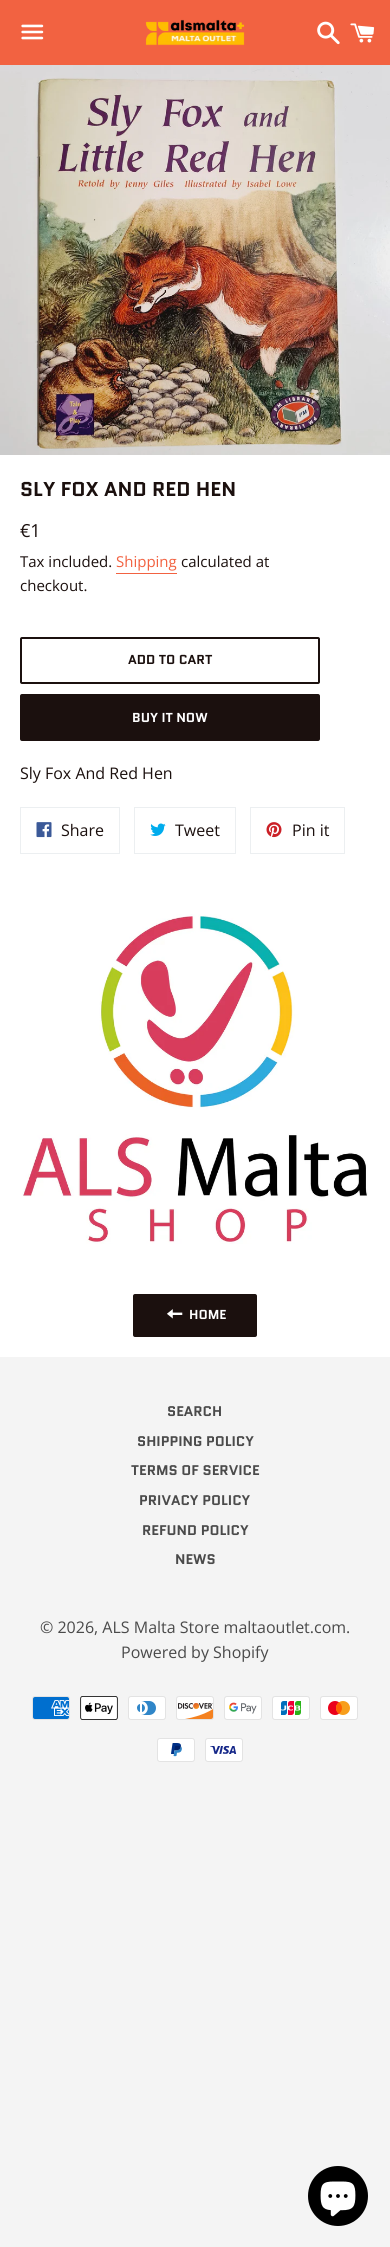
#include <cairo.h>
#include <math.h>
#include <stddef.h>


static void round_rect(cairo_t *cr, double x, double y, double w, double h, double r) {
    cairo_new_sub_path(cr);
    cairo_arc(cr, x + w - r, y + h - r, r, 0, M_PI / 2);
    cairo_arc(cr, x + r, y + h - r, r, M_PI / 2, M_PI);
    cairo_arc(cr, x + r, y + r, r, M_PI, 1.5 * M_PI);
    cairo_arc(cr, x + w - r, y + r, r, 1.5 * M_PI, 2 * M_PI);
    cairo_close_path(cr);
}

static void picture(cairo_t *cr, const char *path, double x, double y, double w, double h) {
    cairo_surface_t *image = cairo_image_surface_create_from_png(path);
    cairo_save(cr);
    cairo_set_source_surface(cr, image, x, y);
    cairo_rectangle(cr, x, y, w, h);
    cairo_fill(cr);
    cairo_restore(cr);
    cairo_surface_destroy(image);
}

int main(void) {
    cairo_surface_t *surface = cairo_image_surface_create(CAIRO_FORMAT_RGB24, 390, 2247);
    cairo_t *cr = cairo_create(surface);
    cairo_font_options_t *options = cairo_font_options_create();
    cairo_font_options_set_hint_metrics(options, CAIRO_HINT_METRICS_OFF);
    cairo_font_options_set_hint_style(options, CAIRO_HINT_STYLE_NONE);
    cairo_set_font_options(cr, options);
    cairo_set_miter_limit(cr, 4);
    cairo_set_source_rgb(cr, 0.957, 0.957, 0.957);
    cairo_paint(cr);
    cairo_set_source_rgb(cr, 1, 1, 1);
    cairo_rectangle(cr, 0, 455, 390, 902);
    cairo_fill(cr);
    cairo_set_source_rgb(cr, 0.949, 0.384, 0.255);
    cairo_rectangle(cr, 0, 0, 390, 65);
    cairo_fill(cr);
    picture(cr, "img1.png", 21, 24, 23, 16);
    picture(cr, "img2.png", 145, 19, 100, 27);
    picture(cr, "img3.png", 317, 21, 23, 24);
    picture(cr, "img4.png", 350, 23, 25, 20);
    picture(cr, "img5.png", 0, 65, 390, 390);
    cairo_select_font_face(cr, "Quantico", CAIRO_FONT_SLANT_NORMAL, CAIRO_FONT_WEIGHT_BOLD);
    cairo_set_font_size(cr, 20);
    cairo_set_source_rgb(cr, 0.106, 0.063, 0.055);
    cairo_move_to(cr, 20, 496);
    cairo_show_text(cr, "SLY FOX AND RED HEN");
    cairo_select_font_face(cr, "Open Sans", CAIRO_FONT_SLANT_NORMAL, CAIRO_FONT_WEIGHT_NORMAL);
    cairo_set_font_size(cr, 18);
    cairo_move_to(cr, 20, 537);
    cairo_show_text(cr, "€1");
    cairo_set_font_size(cr, 15);
    cairo_move_to(cr, 20, 567);
    cairo_show_text(cr, "Tax included.");
    cairo_set_source_rgb(cr, 0.949, 0.384, 0.255);
    cairo_move_to(cr, 116, 567);
    cairo_show_text(cr, "Shipping");
    cairo_rectangle(cr, 116, 573, 61, 1);
    cairo_fill(cr);
    cairo_set_source_rgb(cr, 0.106, 0.063, 0.055);
    cairo_move_to(cr, 181, 567);
    cairo_show_text(cr, "calculated at");
    cairo_move_to(cr, 20, 591);
    cairo_show_text(cr, "checkout.");
    round_rect(cr, 21, 638, 298, 45, 1);
    cairo_stroke(cr);
    cairo_select_font_face(cr, "Quantico", CAIRO_FONT_SLANT_NORMAL, CAIRO_FONT_WEIGHT_BOLD);
    cairo_set_font_size(cr, 13);
    cairo_move_to(cr, 128, 664);
    cairo_show_text(cr, "ADD TO CART");
    round_rect(cr, 20, 694, 300, 47, 2);
    cairo_fill(cr);
    cairo_set_source_rgb(cr, 1, 1, 1);
    cairo_move_to(cr, 132, 722);
    cairo_show_text(cr, "BUY IT NOW");
    cairo_select_font_face(cr, "Open Sans", CAIRO_FONT_SLANT_NORMAL, CAIRO_FONT_WEIGHT_NORMAL);
    cairo_set_font_size(cr, 16);
    cairo_set_source_rgb(cr, 0.106, 0.063, 0.055);
    cairo_move_to(cr, 20, 779);
    cairo_show_text(cr, "Sly Fox And Red Hen");
    cairo_rectangle(cr, 20.5, 807.5, 99, 46);
    cairo_set_source_rgb(cr, 0.925, 0.937, 0.945);
    cairo_set_line_width(cr, 1);
    cairo_stroke(cr);
    picture(cr, "img6.png", 36, 822, 16, 16);
    cairo_set_source_rgb(cr, 0.106, 0.063, 0.055);
    cairo_move_to(cr, 61, 836);
    cairo_show_text(cr, "Share");
    cairo_rectangle(cr, 134.5, 807.5, 101, 46);
    cairo_set_source_rgb(cr, 0.925, 0.937, 0.945);
    cairo_stroke(cr);
    picture(cr, "img7.png", 150, 823, 16, 13);
    cairo_set_source_rgb(cr, 0.106, 0.063, 0.055);
    cairo_move_to(cr, 175, 836);
    cairo_show_text(cr, "Tweet");
    cairo_rectangle(cr, 250.5, 807.5, 94, 46);
    cairo_set_source_rgb(cr, 0.925, 0.937, 0.945);
    cairo_stroke(cr);
    picture(cr, "img8.png", 266, 822, 16, 16);
    cairo_set_source_rgb(cr, 0.106, 0.063, 0.055);
    cairo_move_to(cr, 292, 836);
    cairo_show_text(cr, "Pin it");
    picture(cr, "img9.png", 22, 914, 346, 330);
    round_rect(cr, 133, 1294, 124, 43, 2);
    cairo_fill(cr);
    picture(cr, "img10.png", 167, 1309, 16, 10);
    cairo_select_font_face(cr, "Quantico", CAIRO_FONT_SLANT_NORMAL, CAIRO_FONT_WEIGHT_BOLD);
    cairo_set_font_size(cr, 13);
    cairo_set_source_rgb(cr, 1, 1, 1);
    cairo_move_to(cr, 189, 1319);
    cairo_show_text(cr, "HOME");
    cairo_set_font_size(cr, 14);
    cairo_set_source_rgb(cr, 0.29, 0.29, 0.29);
    cairo_move_to(cr, 167, 1416);
    cairo_show_text(cr, "SEARCH");
    cairo_move_to(cr, 137, 1446);
    cairo_show_text(cr, "SHIPPING POLICY");
    cairo_move_to(cr, 131, 1475);
    cairo_show_text(cr, "TERMS OF SERVICE");
    cairo_move_to(cr, 139, 1505);
    cairo_show_text(cr, "PRIVACY POLICY");
    cairo_move_to(cr, 142, 1535);
    cairo_show_text(cr, "REFUND POLICY");
    cairo_move_to(cr, 175, 1564);
    cairo_show_text(cr, "NEWS");
    cairo_select_font_face(cr, "Open Sans", CAIRO_FONT_SLANT_NORMAL, CAIRO_FONT_WEIGHT_NORMAL);
    cairo_set_font_size(cr, 16);
    cairo_move_to(cr, 40, 1633);
    cairo_show_text(cr, "© 2026, ALS Malta Store maltaoutlet.com.");
    cairo_move_to(cr, 121, 1658);
    cairo_show_text(cr, "Powered by Shopify");
    picture(cr, "img11.png", 32, 1696, 38, 24);
    picture(cr, "img12.png", 80, 1696, 38, 24);
    picture(cr, "img13.png", 128, 1696, 38, 24);
    picture(cr, "img14.png", 176, 1696, 38, 24);
    picture(cr, "img15.png", 224, 1696, 38, 24);
    picture(cr, "img16.png", 272, 1696, 38, 24);
    picture(cr, "img17.png", 320, 1696, 38, 24);
    picture(cr, "img18.png", 157, 1738, 38, 24);
    picture(cr, "img19.png", 205, 1738, 38, 24);
    cairo_set_source_rgb(cr, 0, 0, 0);
    cairo_arc(cr, 338, 2196, 30, 0, 2 * M_PI);
    cairo_fill(cr);
    picture(cr, "img20.png", 320, 2181, 36, 36);
    cairo_surface_write_to_png(surface, "page.png");
    cairo_font_options_destroy(options);
    cairo_destroy(cr);
    cairo_surface_destroy(surface);
    return 0;
}
